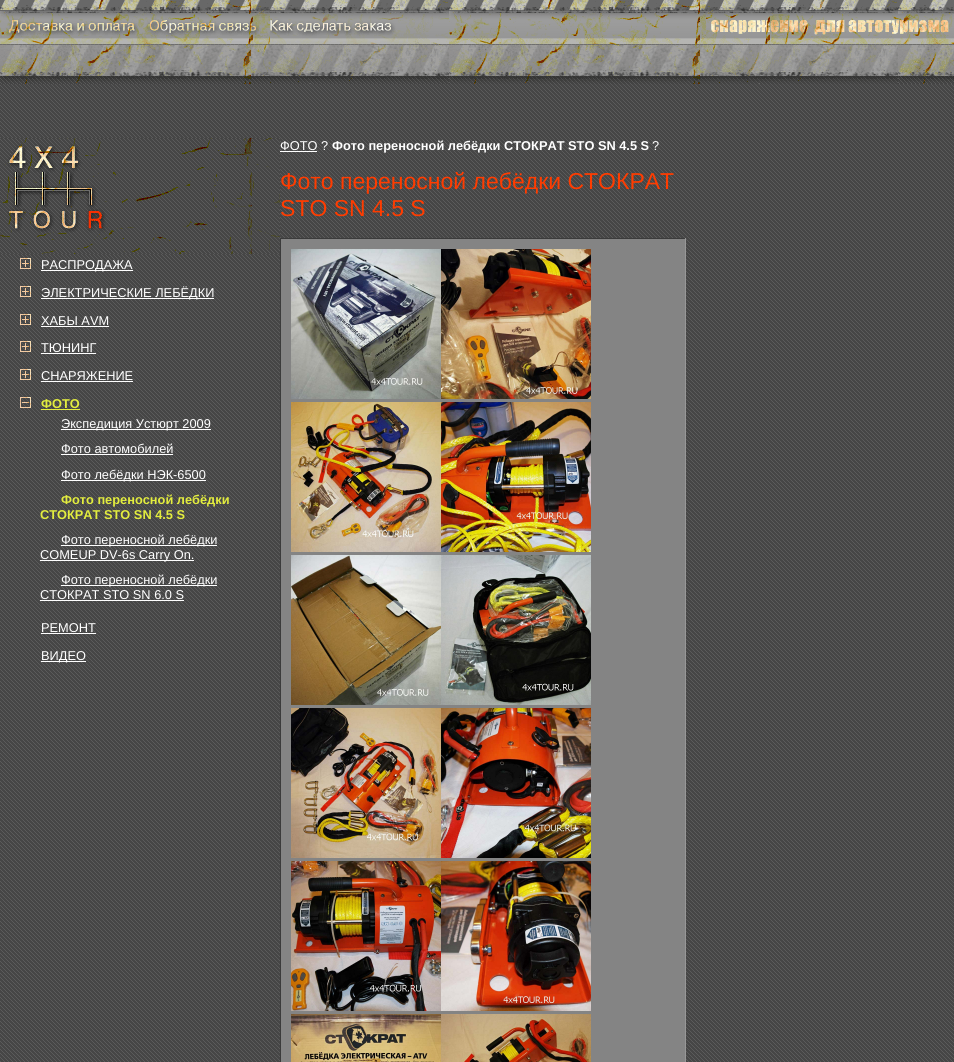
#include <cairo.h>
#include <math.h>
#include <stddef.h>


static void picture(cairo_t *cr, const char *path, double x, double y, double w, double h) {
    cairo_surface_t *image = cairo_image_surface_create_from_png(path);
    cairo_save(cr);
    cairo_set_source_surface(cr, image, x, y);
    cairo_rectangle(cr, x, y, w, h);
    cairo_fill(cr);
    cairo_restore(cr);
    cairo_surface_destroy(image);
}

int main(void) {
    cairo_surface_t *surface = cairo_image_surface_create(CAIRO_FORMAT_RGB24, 954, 1062);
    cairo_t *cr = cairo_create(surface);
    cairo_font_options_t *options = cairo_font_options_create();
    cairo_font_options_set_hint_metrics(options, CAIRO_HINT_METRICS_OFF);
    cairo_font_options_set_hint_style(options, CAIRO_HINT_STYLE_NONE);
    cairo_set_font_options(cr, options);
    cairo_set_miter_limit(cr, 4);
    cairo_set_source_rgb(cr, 1, 1, 1);
    cairo_paint(cr);
    picture(cr, "img1.png", 0, 84, 954, 978);
    picture(cr, "img2.png", 0, 0, 954, 84);
    picture(cr, "img3.png", 0, 14, 149, 30);
    picture(cr, "img4.png", 149, 14, 121, 30);
    picture(cr, "img5.png", 270, 14, 137, 30);
    picture(cr, "img6.png", 706, 14, 248, 30);
    cairo_select_font_face(cr, "Liberation Sans", CAIRO_FONT_SLANT_NORMAL, CAIRO_FONT_WEIGHT_NORMAL);
    cairo_set_font_size(cr, 12.8);
    cairo_set_source_rgb(cr, 1, 1, 1);
    cairo_move_to(cr, 280, 150);
    cairo_show_text(cr, "ФОТО ?");
    cairo_rectangle(cr, 280, 151, 37, 1);
    cairo_fill(cr);
    cairo_select_font_face(cr, "Liberation Sans", CAIRO_FONT_SLANT_NORMAL, CAIRO_FONT_WEIGHT_BOLD);
    cairo_move_to(cr, 332, 150);
    cairo_show_text(cr, "Фото переносной лебёдки СТОКРАТ STO SN 4.5 S");
    cairo_select_font_face(cr, "Liberation Sans", CAIRO_FONT_SLANT_NORMAL, CAIRO_FONT_WEIGHT_NORMAL);
    cairo_move_to(cr, 652, 150);
    cairo_show_text(cr, "?");
    cairo_set_font_size(cr, 23);
    cairo_set_source_rgb(cr, 1, 0.235, 0);
    cairo_move_to(cr, 280, 189);
    cairo_show_text(cr, "Фото переносной лебёдки СТОКРАТ");
    cairo_move_to(cr, 280, 216);
    cairo_show_text(cr, "STO SN 4.5 S");
    cairo_set_source_rgb(cr, 0.518, 0.518, 0.518);
    cairo_rectangle(cr, 281, 239, 404, 823);
    cairo_fill(cr);
    cairo_set_source_rgb(cr, 0.231, 0.231, 0.231);
    cairo_rectangle(cr, 280, 238, 406, 1);
    cairo_fill(cr);
    cairo_set_source_rgb(cr, 0.592, 0.592, 0.592);
    cairo_rectangle(cr, 685, 238, 1, 824);
    cairo_fill(cr);
    cairo_set_source_rgb(cr, 0.231, 0.231, 0.231);
    cairo_rectangle(cr, 280, 238, 1, 824);
    cairo_fill(cr);
    picture(cr, "img7.png", 291, 249, 150, 150);
    picture(cr, "img8.png", 441, 249, 150, 150);
    picture(cr, "img9.png", 291, 402, 150, 150);
    picture(cr, "img10.png", 441, 402, 150, 150);
    picture(cr, "img11.png", 291, 555, 150, 150);
    picture(cr, "img12.png", 441, 555, 150, 150);
    picture(cr, "img13.png", 291, 708, 150, 150);
    picture(cr, "img14.png", 441, 708, 150, 150);
    picture(cr, "img15.png", 291, 861, 150, 150);
    picture(cr, "img16.png", 441, 861, 150, 150);
    picture(cr, "img17.png", 291, 1014, 150, 48);
    picture(cr, "img18.png", 441, 1014, 150, 48);
    picture(cr, "img19.png", 0, 138, 280, 116);
    picture(cr, "img20.png", 20, 258, 11, 11);
    cairo_set_source_rgb(cr, 1, 1, 1);
    cairo_rectangle(cr, 41, 270, 92, 1);
    cairo_fill(cr);
    cairo_set_font_size(cr, 12.8);
    cairo_move_to(cr, 41, 269);
    cairo_show_text(cr, "РАСПРОДАЖА");
    picture(cr, "img20.png", 20, 286, 11, 11);
    cairo_rectangle(cr, 41, 298, 173, 1);
    cairo_fill(cr);
    cairo_move_to(cr, 41, 297);
    cairo_show_text(cr, "ЭЛЕКТРИЧЕСКИЕ ЛЕБЁДКИ");
    picture(cr, "img20.png", 20, 314, 11, 11);
    cairo_move_to(cr, 41, 325);
    cairo_show_text(cr, "ХАБЫ AVM");
    cairo_rectangle(cr, 41, 326, 68, 1);
    cairo_fill(cr);
    picture(cr, "img21.png", 20, 341, 11, 11);
    cairo_move_to(cr, 41, 352);
    cairo_show_text(cr, "ТЮНИНГ");
    cairo_rectangle(cr, 41, 353, 55, 1);
    cairo_fill(cr);
    picture(cr, "img21.png", 20, 369, 11, 11);
    cairo_move_to(cr, 41, 380);
    cairo_show_text(cr, "СНАРЯЖЕНИЕ");
    cairo_rectangle(cr, 41, 381, 92, 1);
    cairo_fill(cr);
    picture(cr, "img22.png", 20, 397, 11, 11);
    cairo_select_font_face(cr, "Liberation Sans", CAIRO_FONT_SLANT_NORMAL, CAIRO_FONT_WEIGHT_BOLD);
    cairo_set_source_rgb(cr, 0.89, 0.929, 0.243);
    cairo_move_to(cr, 41, 408);
    cairo_show_text(cr, "ФОТО");
    cairo_rectangle(cr, 41, 409, 39, 1);
    cairo_fill(cr);
    cairo_set_source_rgb(cr, 1, 1, 1);
    cairo_rectangle(cr, 61, 429, 150, 1);
    cairo_fill(cr);
    cairo_select_font_face(cr, "Liberation Sans", CAIRO_FONT_SLANT_NORMAL, CAIRO_FONT_WEIGHT_NORMAL);
    cairo_move_to(cr, 61, 428);
    cairo_show_text(cr, "Экспедиция Устюрт 2009");
    cairo_move_to(cr, 61, 453);
    cairo_show_text(cr, "Фото автомобилей");
    cairo_rectangle(cr, 61, 454, 112, 1);
    cairo_fill(cr);
    cairo_rectangle(cr, 61, 480, 145, 1);
    cairo_fill(cr);
    cairo_move_to(cr, 61, 479);
    cairo_show_text(cr, "Фото лебёдки НЭК-6500");
    cairo_select_font_face(cr, "Liberation Sans", CAIRO_FONT_SLANT_NORMAL, CAIRO_FONT_WEIGHT_BOLD);
    cairo_set_source_rgb(cr, 0.89, 0.929, 0.243);
    cairo_move_to(cr, 61, 504);
    cairo_show_text(cr, "Фото переносной лебёдки");
    cairo_move_to(cr, 40, 519);
    cairo_show_text(cr, "СТОКРАТ STO SN 4.5 S");
    cairo_set_source_rgb(cr, 1, 1, 1);
    cairo_rectangle(cr, 61, 545, 156, 1);
    cairo_fill(cr);
    cairo_select_font_face(cr, "Liberation Sans", CAIRO_FONT_SLANT_NORMAL, CAIRO_FONT_WEIGHT_NORMAL);
    cairo_move_to(cr, 61, 544);
    cairo_show_text(cr, "Фото переносной лебёдки");
    cairo_rectangle(cr, 40, 560, 154, 1);
    cairo_fill(cr);
    cairo_move_to(cr, 40, 559);
    cairo_show_text(cr, "COMEUP DV-6s Carry On.");
    cairo_rectangle(cr, 61, 585, 156, 1);
    cairo_fill(cr);
    cairo_move_to(cr, 61, 584);
    cairo_show_text(cr, "Фото переносной лебёдки");
    cairo_move_to(cr, 40, 599);
    cairo_show_text(cr, "СТОКРАТ STO SN 6.0 S");
    cairo_rectangle(cr, 40, 600, 144, 1);
    cairo_fill(cr);
    cairo_move_to(cr, 41, 632);
    cairo_show_text(cr, "РЕМОНТ");
    cairo_rectangle(cr, 41, 633, 55, 1);
    cairo_fill(cr);
    cairo_rectangle(cr, 41, 661, 45, 1);
    cairo_fill(cr);
    cairo_move_to(cr, 41, 660);
    cairo_show_text(cr, "ВИДЕО");
    cairo_surface_write_to_png(surface, "page.png");
    cairo_font_options_destroy(options);
    cairo_destroy(cr);
    cairo_surface_destroy(surface);
    return 0;
}
